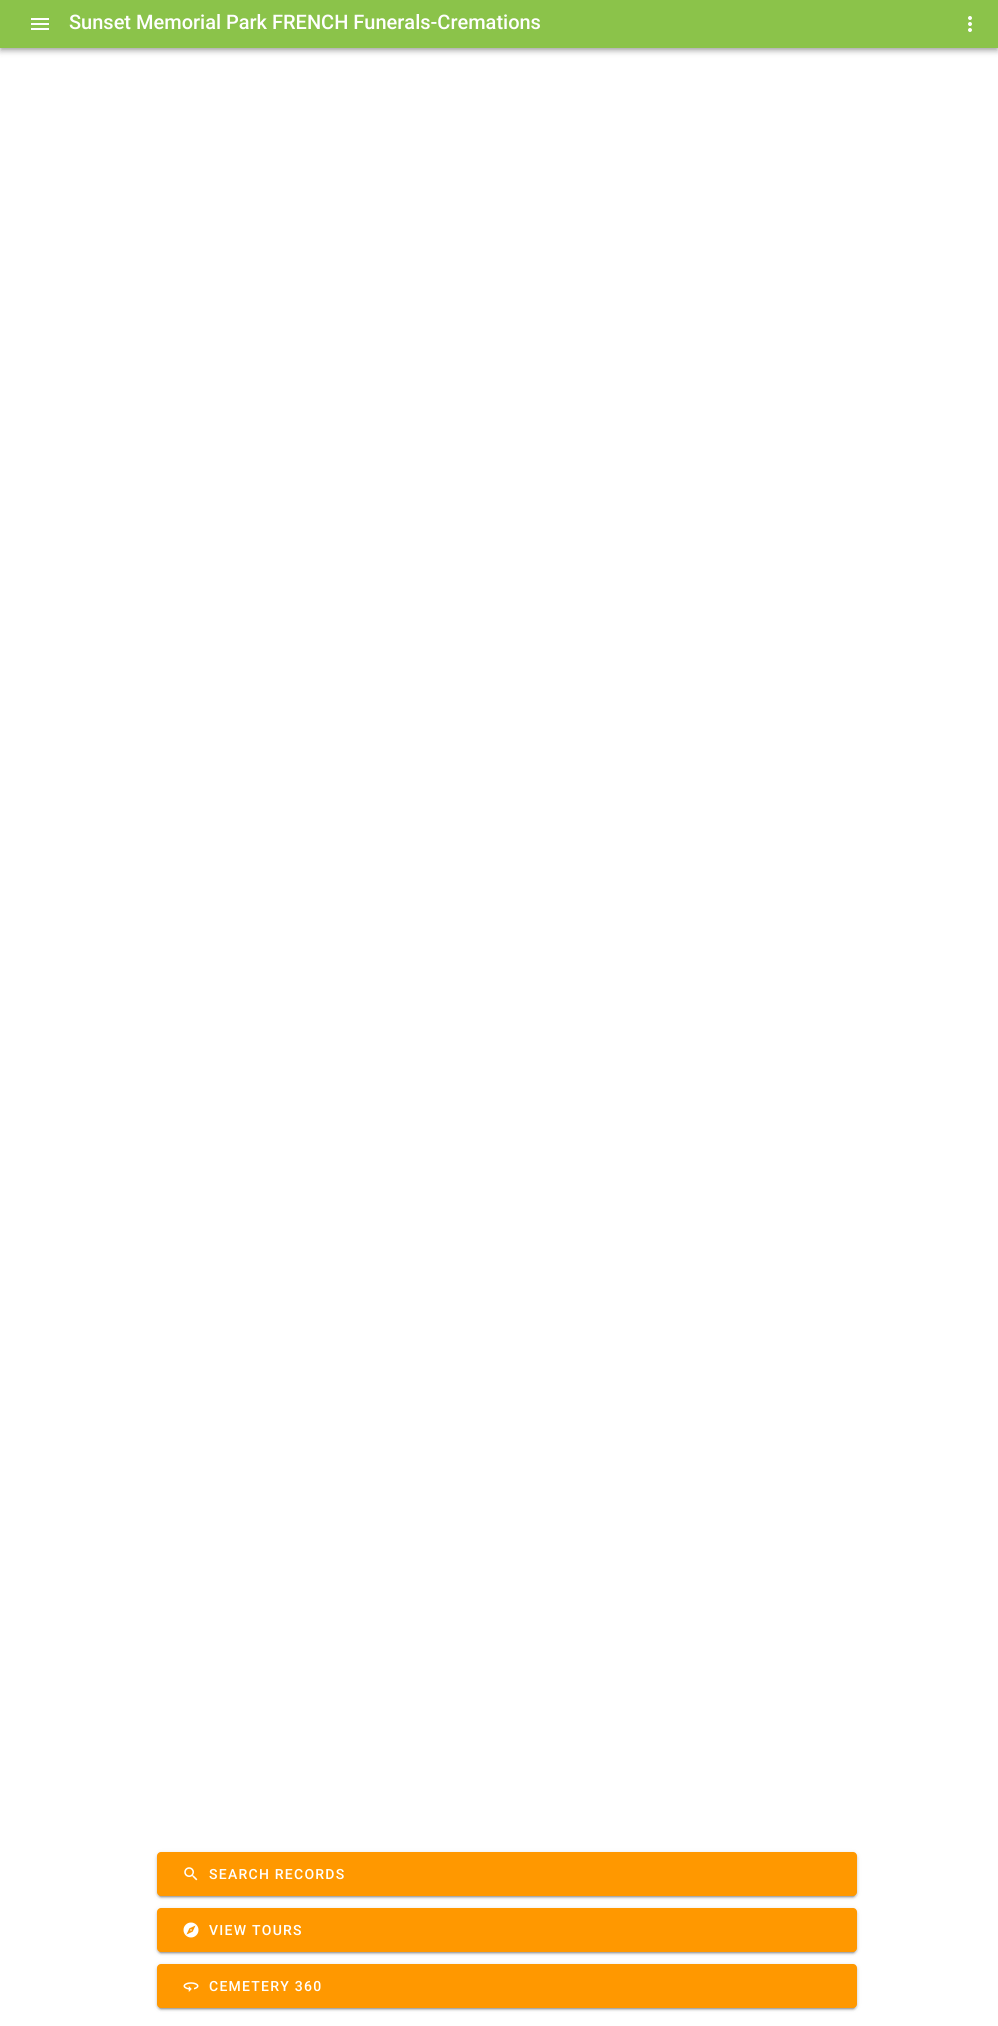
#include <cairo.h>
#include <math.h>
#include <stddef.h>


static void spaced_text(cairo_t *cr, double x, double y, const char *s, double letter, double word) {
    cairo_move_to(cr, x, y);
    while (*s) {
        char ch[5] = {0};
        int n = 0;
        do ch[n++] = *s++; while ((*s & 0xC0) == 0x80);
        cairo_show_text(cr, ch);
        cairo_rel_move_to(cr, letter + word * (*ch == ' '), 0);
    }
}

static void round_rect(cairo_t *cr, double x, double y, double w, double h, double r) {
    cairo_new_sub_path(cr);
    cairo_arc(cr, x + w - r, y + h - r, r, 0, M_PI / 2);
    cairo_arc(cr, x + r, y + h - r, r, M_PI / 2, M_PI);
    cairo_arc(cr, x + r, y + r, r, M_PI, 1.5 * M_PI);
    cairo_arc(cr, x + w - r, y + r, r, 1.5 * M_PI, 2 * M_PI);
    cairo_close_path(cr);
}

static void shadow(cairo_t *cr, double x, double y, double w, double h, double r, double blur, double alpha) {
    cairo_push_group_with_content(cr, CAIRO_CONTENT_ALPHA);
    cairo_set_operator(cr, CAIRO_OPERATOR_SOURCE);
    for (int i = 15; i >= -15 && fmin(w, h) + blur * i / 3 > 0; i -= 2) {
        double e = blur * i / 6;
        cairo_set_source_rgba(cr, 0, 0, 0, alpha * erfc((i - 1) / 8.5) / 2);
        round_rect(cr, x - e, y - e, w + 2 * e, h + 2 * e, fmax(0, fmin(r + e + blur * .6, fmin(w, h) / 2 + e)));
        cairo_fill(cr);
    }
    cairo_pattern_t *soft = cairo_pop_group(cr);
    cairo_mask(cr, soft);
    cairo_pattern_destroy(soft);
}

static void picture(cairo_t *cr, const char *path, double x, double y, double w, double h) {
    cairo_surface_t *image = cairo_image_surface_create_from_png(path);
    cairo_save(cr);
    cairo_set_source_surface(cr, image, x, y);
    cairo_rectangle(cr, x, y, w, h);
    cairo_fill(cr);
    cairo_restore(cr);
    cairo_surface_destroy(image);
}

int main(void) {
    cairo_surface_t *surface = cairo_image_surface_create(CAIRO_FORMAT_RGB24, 998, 2026);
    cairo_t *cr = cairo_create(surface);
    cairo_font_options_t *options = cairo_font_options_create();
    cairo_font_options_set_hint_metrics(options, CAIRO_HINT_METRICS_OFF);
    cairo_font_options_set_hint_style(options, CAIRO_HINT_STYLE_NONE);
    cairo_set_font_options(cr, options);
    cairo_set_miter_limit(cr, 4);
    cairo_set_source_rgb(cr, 1, 1, 1);
    cairo_paint(cr);
    cairo_set_source_rgb(cr, 0, 0, 0);
    shadow(cr, 0, 1, 998, 48, 0, 5, 0.12);
    shadow(cr, 0, 4, 998, 48, 0, 2.5, 0.14);
    shadow(cr, 1, 3, 996, 46, 0, 2, 0.2);
    cairo_set_source_rgb(cr, 0.545, 0.765, 0.29);
    cairo_rectangle(cr, 0, 0, 998, 48);
    cairo_fill(cr);
    picture(cr, "img1.png", 31, 18, 18, 12);
    cairo_select_font_face(cr, "Roboto Medium", CAIRO_FONT_SLANT_NORMAL, CAIRO_FONT_WEIGHT_NORMAL);
    cairo_set_font_size(cr, 20);
    cairo_set_source_rgb(cr, 1, 1, 1);
    cairo_move_to(cr, 69, 29);
    cairo_show_text(cr, "Sunset Memorial Park FRENCH Funerals-Cremations");
    picture(cr, "img2.png", 968, 16, 4, 16);
    cairo_set_source_rgb(cr, 0, 0, 0);
    shadow(cr, 157, 1853, 700, 44, 4, 2.5, 0.12);
    shadow(cr, 157, 1854, 700, 44, 4, 1, 0.14);
    shadow(cr, 159, 1857, 696, 40, 2, 0.5, 0.2);
    cairo_set_source_rgb(cr, 1, 0.596, 0);
    round_rect(cr, 157, 1852, 700, 44, 4);
    cairo_fill(cr);
    picture(cr, "img3.png", 184, 1867, 14, 14);
    cairo_set_font_size(cr, 14);
    cairo_set_source_rgb(cr, 1, 1, 1);
    spaced_text(cr, 209, 1879, "SEARCH RECORDS", 1.25, 0);
    cairo_set_source_rgb(cr, 0, 0, 0);
    shadow(cr, 157, 1909, 700, 44, 4, 2.5, 0.12);
    shadow(cr, 157, 1910, 700, 44, 4, 1, 0.14);
    shadow(cr, 159, 1913, 696, 40, 2, 0.5, 0.2);
    cairo_set_source_rgb(cr, 1, 0.596, 0);
    round_rect(cr, 157, 1908, 700, 44, 4);
    cairo_fill(cr);
    picture(cr, "img4.png", 183, 1922, 16, 16);
    cairo_set_source_rgb(cr, 1, 1, 1);
    spaced_text(cr, 209, 1935, "VIEW TOURS", 1.25, 0);
    cairo_set_source_rgb(cr, 0, 0, 0);
    shadow(cr, 157, 1965, 700, 44, 4, 2.5, 0.12);
    shadow(cr, 157, 1966, 700, 44, 4, 1, 0.14);
    shadow(cr, 159, 1969, 696, 40, 2, 0.5, 0.2);
    cairo_set_source_rgb(cr, 1, 0.596, 0);
    round_rect(cr, 157, 1964, 700, 44, 4);
    cairo_fill(cr);
    picture(cr, "img5.png", 183, 1982, 16, 10);
    cairo_set_source_rgb(cr, 1, 1, 1);
    spaced_text(cr, 209, 1991, "CEMETERY 360", 1.25, 0);
    cairo_surface_write_to_png(surface, "page.png");
    cairo_font_options_destroy(options);
    cairo_destroy(cr);
    cairo_surface_destroy(surface);
    return 0;
}
